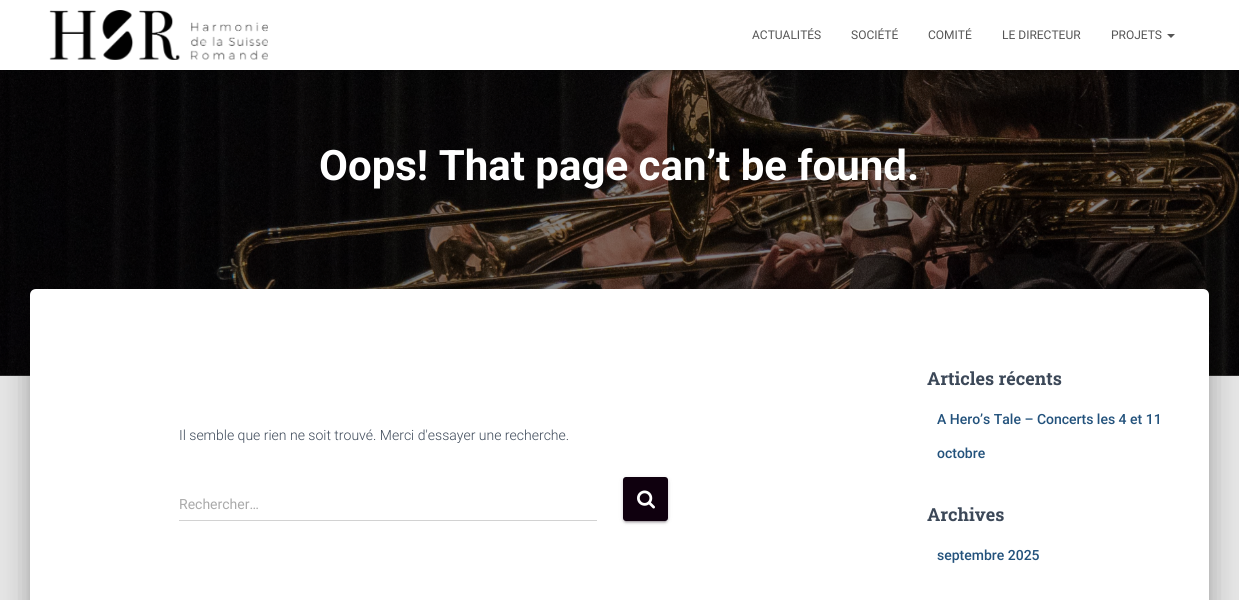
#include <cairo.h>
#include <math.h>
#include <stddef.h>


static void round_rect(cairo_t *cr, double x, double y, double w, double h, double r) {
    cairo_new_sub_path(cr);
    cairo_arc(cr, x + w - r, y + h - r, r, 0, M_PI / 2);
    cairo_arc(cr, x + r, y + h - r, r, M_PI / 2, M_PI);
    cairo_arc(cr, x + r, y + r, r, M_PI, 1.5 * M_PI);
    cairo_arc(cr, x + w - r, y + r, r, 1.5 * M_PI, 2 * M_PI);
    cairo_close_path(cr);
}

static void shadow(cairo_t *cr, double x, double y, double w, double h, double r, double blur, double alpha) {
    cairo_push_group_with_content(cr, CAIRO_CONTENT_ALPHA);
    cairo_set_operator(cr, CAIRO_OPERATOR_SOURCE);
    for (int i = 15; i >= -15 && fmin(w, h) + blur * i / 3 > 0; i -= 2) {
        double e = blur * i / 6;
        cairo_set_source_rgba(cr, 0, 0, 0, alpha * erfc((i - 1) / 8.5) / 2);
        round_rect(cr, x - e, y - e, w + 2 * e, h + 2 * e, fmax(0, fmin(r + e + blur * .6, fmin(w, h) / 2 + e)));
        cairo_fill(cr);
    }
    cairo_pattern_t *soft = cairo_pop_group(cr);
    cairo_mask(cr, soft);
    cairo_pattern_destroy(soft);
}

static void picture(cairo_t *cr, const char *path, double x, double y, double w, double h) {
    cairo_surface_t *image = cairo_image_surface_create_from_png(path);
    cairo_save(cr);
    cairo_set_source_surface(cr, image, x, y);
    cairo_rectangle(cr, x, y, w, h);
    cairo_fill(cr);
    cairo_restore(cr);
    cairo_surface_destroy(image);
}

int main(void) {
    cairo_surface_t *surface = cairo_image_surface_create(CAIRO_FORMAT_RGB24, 1239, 600);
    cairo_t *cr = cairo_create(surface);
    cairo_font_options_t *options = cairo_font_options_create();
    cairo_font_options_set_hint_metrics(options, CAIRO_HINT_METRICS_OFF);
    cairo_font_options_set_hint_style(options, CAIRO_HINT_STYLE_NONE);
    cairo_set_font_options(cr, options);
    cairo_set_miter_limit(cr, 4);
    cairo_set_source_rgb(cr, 0.898, 0.898, 0.898);
    cairo_paint(cr);
    cairo_set_source_rgb(cr, 0.451, 0.451, 0.451);
    cairo_rectangle(cr, 0, 375, 1239, 1);
    cairo_fill(cr);
    picture(cr, "img2.png", 0, 70, 1239, 306);
    cairo_set_source_rgb(cr, 0, 0, 0);
    shadow(cr, 2, 6, 1235, 66, 0, 2.5, 0.1);
    shadow(cr, 0, 1, 1239, 70, 0, 5, 0.12);
    shadow(cr, 6, 7, 1227, 58, 0, 5, 0.42);
    cairo_set_source_rgb(cr, 1, 1, 1);
    cairo_rectangle(cr, 0, 0, 1239, 70);
    cairo_fill(cr);
    picture(cr, "img1.png", 49, 10, 219, 50);
    cairo_select_font_face(cr, "Roboto", CAIRO_FONT_SLANT_NORMAL, CAIRO_FONT_WEIGHT_NORMAL);
    cairo_set_font_size(cr, 12);
    cairo_set_source_rgb(cr, 0.333, 0.333, 0.333);
    cairo_move_to(cr, 752, 39);
    cairo_show_text(cr, "ACTUALITÉS");
    cairo_move_to(cr, 851, 39);
    cairo_show_text(cr, "SOCIÉTÉ");
    cairo_move_to(cr, 928, 39);
    cairo_show_text(cr, "COMITÉ");
    cairo_move_to(cr, 1002, 39);
    cairo_show_text(cr, "LE DIRECTEUR");
    cairo_move_to(cr, 1111, 39);
    cairo_show_text(cr, "PROJETS");
    cairo_new_path(cr);
    cairo_move_to(cr, 1167, 34);
    cairo_line_to(cr, 1175, 34);
    cairo_line_to(cr, 1171, 38);
    cairo_close_path(cr);
    cairo_fill(cr);
    cairo_select_font_face(cr, "Roboto", CAIRO_FONT_SLANT_NORMAL, CAIRO_FONT_WEIGHT_BOLD);
    cairo_set_font_size(cr, 42);
    cairo_set_source_rgb(cr, 1, 1, 1);
    cairo_move_to(cr, 319, 180);
    cairo_show_text(cr, "Oops! That page can’t be found.");
    cairo_set_source_rgb(cr, 0, 0, 0);
    shadow(cr, 35, 302, 1169, 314, 1, 5, 0.2);
    shadow(cr, 25, 290, 1189, 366, 11, 15, 0.12);
    shadow(cr, 28, 303, 1183, 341, 8, 12, 0.14);
    cairo_set_source_rgb(cr, 1, 1, 1);
    cairo_new_path(cr);
    cairo_move_to(cr, 36, 289);
    cairo_line_to(cr, 1203, 289);
    cairo_curve_to(cr, 1206.5, 289, 1209, 291.5, 1209, 295);
    cairo_line_to(cr, 1209, 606);
    cairo_line_to(cr, 30, 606);
    cairo_line_to(cr, 30, 295);
    cairo_curve_to(cr, 30, 291.5, 32.5, 289, 36, 289);
    cairo_close_path(cr);
    cairo_fill(cr);
    cairo_select_font_face(cr, "Roboto Light", CAIRO_FONT_SLANT_NORMAL, CAIRO_FONT_WEIGHT_NORMAL);
    cairo_set_font_size(cr, 14);
    cairo_set_source_rgb(cr, 0.235, 0.282, 0.345);
    cairo_move_to(cr, 179, 440);
    cairo_show_text(cr, "Il semble que rien ne soit trouvé. Merci d'essayer une recherche.");
    cairo_select_font_face(cr, "Roboto", CAIRO_FONT_SLANT_NORMAL, CAIRO_FONT_WEIGHT_NORMAL);
    cairo_set_source_rgb(cr, 0.667, 0.667, 0.667);
    cairo_move_to(cr, 179, 509);
    cairo_show_text(cr, "Rechercher…");
    cairo_set_source_rgb(cr, 0.824, 0.824, 0.824);
    cairo_rectangle(cr, 179, 520, 418, 1);
    cairo_fill(cr);
    cairo_set_source_rgb(cr, 0.059, 0, 0.055);
    shadow(cr, 623, 478, 45, 44, 3, 2.5, 0.12);
    shadow(cr, 625, 482, 41, 40, 1, 0.5, 0.2);
    shadow(cr, 623, 479, 45, 44, 3, 1, 0.14);
    cairo_set_source_rgb(cr, 0.059, 0, 0.055);
    round_rect(cr, 623, 477, 45, 44, 3);
    cairo_fill(cr);
    picture(cr, "img3.png", 637, 490, 18, 19);
    cairo_select_font_face(cr, "Roboto Slab", CAIRO_FONT_SLANT_NORMAL, CAIRO_FONT_WEIGHT_BOLD);
    cairo_set_font_size(cr, 18);
    cairo_set_source_rgb(cr, 0.235, 0.282, 0.345);
    cairo_move_to(cr, 927, 385);
    cairo_show_text(cr, "Articles récents");
    cairo_select_font_face(cr, "Roboto Medium", CAIRO_FONT_SLANT_NORMAL, CAIRO_FONT_WEIGHT_NORMAL);
    cairo_set_font_size(cr, 14);
    cairo_set_source_rgb(cr, 0.137, 0.322, 0.486);
    cairo_move_to(cr, 937, 424);
    cairo_show_text(cr, "A Hero’s Tale – Concerts les 4 et 11");
    cairo_move_to(cr, 937, 458);
    cairo_show_text(cr, "octobre");
    cairo_select_font_face(cr, "Roboto Slab", CAIRO_FONT_SLANT_NORMAL, CAIRO_FONT_WEIGHT_BOLD);
    cairo_set_font_size(cr, 18);
    cairo_set_source_rgb(cr, 0.235, 0.282, 0.345);
    cairo_move_to(cr, 927, 521);
    cairo_show_text(cr, "Archives");
    cairo_select_font_face(cr, "Roboto Medium", CAIRO_FONT_SLANT_NORMAL, CAIRO_FONT_WEIGHT_NORMAL);
    cairo_set_font_size(cr, 14);
    cairo_set_source_rgb(cr, 0.137, 0.322, 0.486);
    cairo_move_to(cr, 937, 560);
    cairo_show_text(cr, "septembre 2025");
    cairo_surface_write_to_png(surface, "page.png");
    cairo_font_options_destroy(options);
    cairo_destroy(cr);
    cairo_surface_destroy(surface);
    return 0;
}
